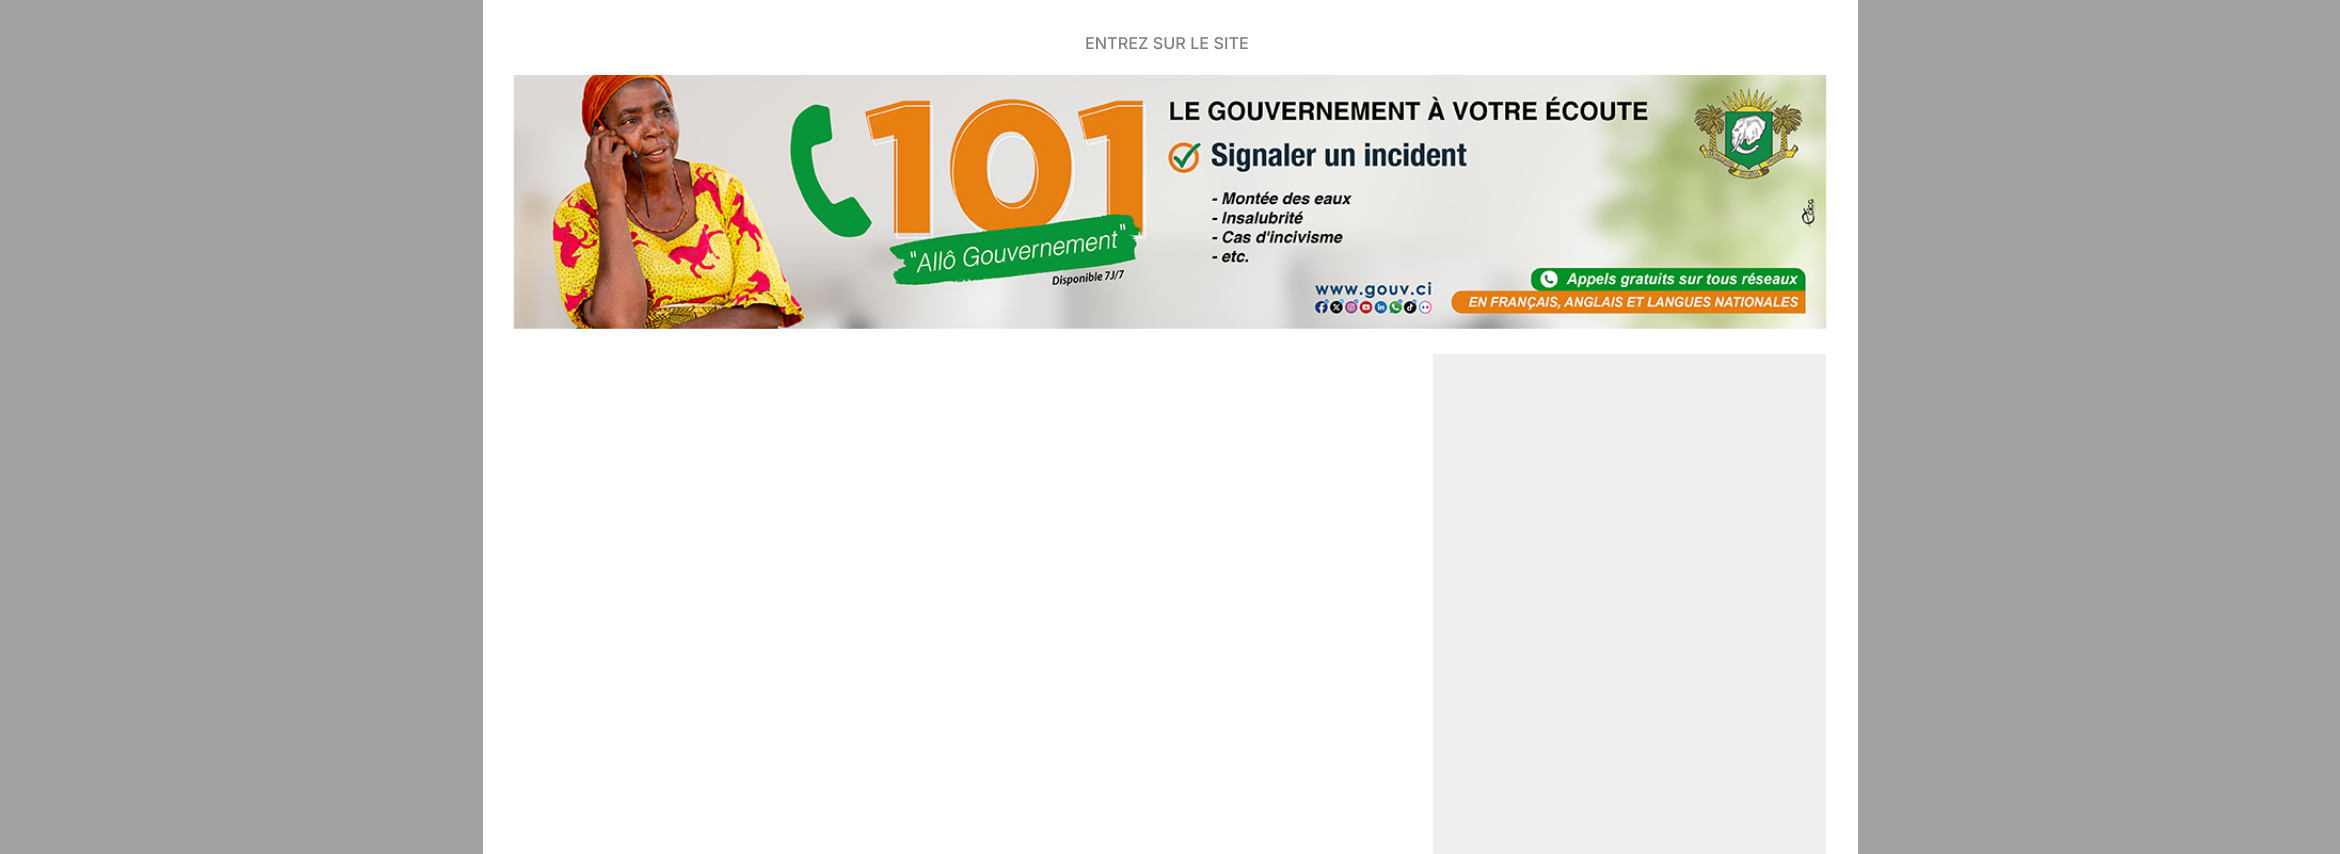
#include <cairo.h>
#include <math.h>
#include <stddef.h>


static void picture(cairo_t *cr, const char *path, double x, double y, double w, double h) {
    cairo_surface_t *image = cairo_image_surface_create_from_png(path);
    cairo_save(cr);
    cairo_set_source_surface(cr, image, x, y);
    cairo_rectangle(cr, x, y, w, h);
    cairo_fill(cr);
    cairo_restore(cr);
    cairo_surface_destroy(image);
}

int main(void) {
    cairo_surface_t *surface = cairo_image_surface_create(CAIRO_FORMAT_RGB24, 2340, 854);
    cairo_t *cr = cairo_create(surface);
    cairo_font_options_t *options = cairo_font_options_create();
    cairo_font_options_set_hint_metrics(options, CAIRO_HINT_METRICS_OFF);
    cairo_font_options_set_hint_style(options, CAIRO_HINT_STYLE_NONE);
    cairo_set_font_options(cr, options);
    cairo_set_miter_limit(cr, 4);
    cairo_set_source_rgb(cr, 0.635, 0.635, 0.635);
    cairo_paint(cr);
    cairo_set_source_rgb(cr, 1, 1, 1);
    cairo_rectangle(cr, 483, 0, 1375, 854);
    cairo_fill(cr);
    cairo_select_font_face(cr, "Inter Medium", CAIRO_FONT_SLANT_NORMAL, CAIRO_FONT_WEIGHT_NORMAL);
    cairo_set_font_size(cr, 16.25);
    cairo_set_source_rgb(cr, 0.502, 0.502, 0.502);
    cairo_move_to(cr, 1085, 49);
    cairo_show_text(cr, "ENTREZ SUR LE SITE");
    picture(cr, "img1.png", 513, 75, 1314, 254);
    cairo_set_source_rgb(cr, 0.937, 0.937, 0.937);
    cairo_rectangle(cr, 1433, 354, 393, 500);
    cairo_fill(cr);
    cairo_surface_write_to_png(surface, "page.png");
    cairo_font_options_destroy(options);
    cairo_destroy(cr);
    cairo_surface_destroy(surface);
    return 0;
}
